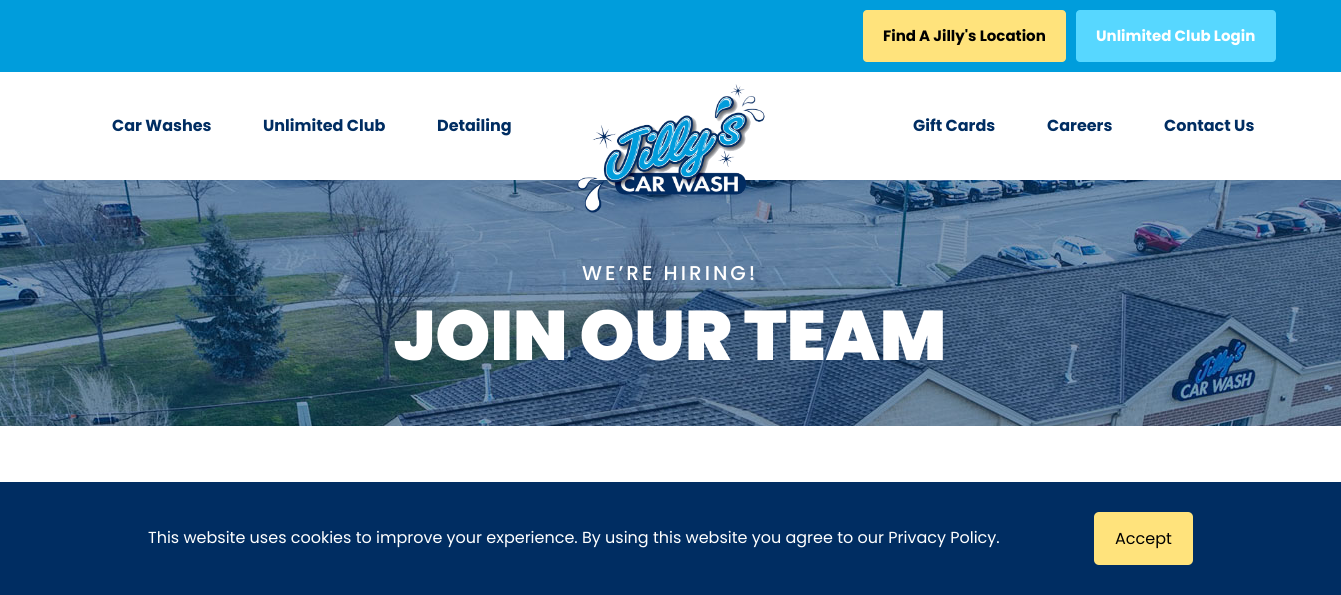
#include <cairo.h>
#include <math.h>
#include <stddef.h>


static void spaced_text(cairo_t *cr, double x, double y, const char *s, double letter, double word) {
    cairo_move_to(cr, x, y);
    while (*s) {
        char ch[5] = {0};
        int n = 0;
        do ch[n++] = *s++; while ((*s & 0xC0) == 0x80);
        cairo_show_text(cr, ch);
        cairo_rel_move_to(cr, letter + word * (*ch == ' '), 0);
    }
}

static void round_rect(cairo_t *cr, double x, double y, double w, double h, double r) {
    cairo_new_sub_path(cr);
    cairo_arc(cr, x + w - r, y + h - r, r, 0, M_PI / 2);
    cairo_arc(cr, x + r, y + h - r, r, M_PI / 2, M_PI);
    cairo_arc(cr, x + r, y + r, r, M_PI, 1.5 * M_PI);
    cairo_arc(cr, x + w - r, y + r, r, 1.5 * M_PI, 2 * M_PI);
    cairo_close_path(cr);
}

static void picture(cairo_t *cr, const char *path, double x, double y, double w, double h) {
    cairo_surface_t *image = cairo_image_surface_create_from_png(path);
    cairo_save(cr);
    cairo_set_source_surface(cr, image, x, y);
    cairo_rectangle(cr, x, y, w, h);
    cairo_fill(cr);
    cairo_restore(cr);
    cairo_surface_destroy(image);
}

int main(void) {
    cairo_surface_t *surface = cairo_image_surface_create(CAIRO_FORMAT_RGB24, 1341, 595);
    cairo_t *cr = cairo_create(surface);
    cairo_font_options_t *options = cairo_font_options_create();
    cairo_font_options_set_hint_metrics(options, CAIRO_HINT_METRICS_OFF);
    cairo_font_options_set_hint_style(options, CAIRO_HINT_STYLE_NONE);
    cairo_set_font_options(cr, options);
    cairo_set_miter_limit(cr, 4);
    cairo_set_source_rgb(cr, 1, 1, 1);
    cairo_paint(cr);
    cairo_set_source_rgb(cr, 0, 0.616, 0.863);
    cairo_rectangle(cr, 0, 0, 1341, 72);
    cairo_fill(cr);
    cairo_set_source_rgb(cr, 1, 0.89, 0.486);
    round_rect(cr, 863, 10, 203, 52, 4);
    cairo_fill(cr);
    cairo_select_font_face(cr, "Poppins", CAIRO_FONT_SLANT_NORMAL, CAIRO_FONT_WEIGHT_BOLD);
    cairo_set_font_size(cr, 15);
    cairo_set_source_rgb(cr, 0, 0, 0);
    cairo_move_to(cr, 883, 41);
    cairo_show_text(cr, "Find A Jilly's Location");
    cairo_set_source_rgb(cr, 0.341, 0.843, 1);
    round_rect(cr, 1076, 10, 200, 52, 4);
    cairo_fill(cr);
    cairo_set_source_rgb(cr, 1, 1, 1);
    cairo_move_to(cr, 1096, 41);
    cairo_show_text(cr, "Unlimited Club Login");
    cairo_set_font_size(cr, 16);
    cairo_set_source_rgb(cr, 0, 0.176, 0.384);
    cairo_move_to(cr, 112, 131);
    cairo_show_text(cr, "Car Washes");
    cairo_move_to(cr, 263, 131);
    cairo_show_text(cr, "Unlimited Club");
    cairo_move_to(cr, 437, 131);
    cairo_show_text(cr, "Detailing");
    picture(cr, "img2.png", 0, 180, 1341, 246);
    picture(cr, "img1.png", 577, 84, 188, 129);
    cairo_move_to(cr, 913, 131);
    cairo_show_text(cr, "Gift Cards");
    cairo_move_to(cr, 1047, 131);
    cairo_show_text(cr, "Careers");
    cairo_move_to(cr, 1164, 131);
    cairo_show_text(cr, "Contact Us");
    cairo_select_font_face(cr, "Poppins Medium", CAIRO_FONT_SLANT_NORMAL, CAIRO_FONT_WEIGHT_NORMAL);
    cairo_set_font_size(cr, 20);
    cairo_set_source_rgb(cr, 1, 1, 1);
    spaced_text(cr, 582, 280, "WE’RE HIRING!", 3, 0);
    cairo_select_font_face(cr, "Poppins Black", CAIRO_FONT_SLANT_NORMAL, CAIRO_FONT_WEIGHT_NORMAL);
    cairo_set_font_size(cr, 70);
    cairo_move_to(cr, 394, 360);
    cairo_show_text(cr, "JOIN OUR TEAM");
    cairo_set_source_rgb(cr, 0, 0.176, 0.384);
    cairo_rectangle(cr, 0, 482, 1341, 113);
    cairo_fill(cr);
    cairo_select_font_face(cr, "Poppins", CAIRO_FONT_SLANT_NORMAL, CAIRO_FONT_WEIGHT_NORMAL);
    cairo_set_font_size(cr, 16);
    cairo_set_source_rgb(cr, 1, 1, 1);
    cairo_move_to(cr, 148, 543);
    cairo_show_text(cr, "This website uses cookies to improve your experience. By using this website you agree to our Privacy Policy.");
    cairo_set_source_rgb(cr, 1, 0.89, 0.486);
    round_rect(cr, 1094, 512, 99, 53, 5);
    cairo_fill(cr);
    cairo_set_source_rgb(cr, 0, 0, 0);
    cairo_move_to(cr, 1115, 544);
    cairo_show_text(cr, "Accept");
    cairo_surface_write_to_png(surface, "page.png");
    cairo_font_options_destroy(options);
    cairo_destroy(cr);
    cairo_surface_destroy(surface);
    return 0;
}
